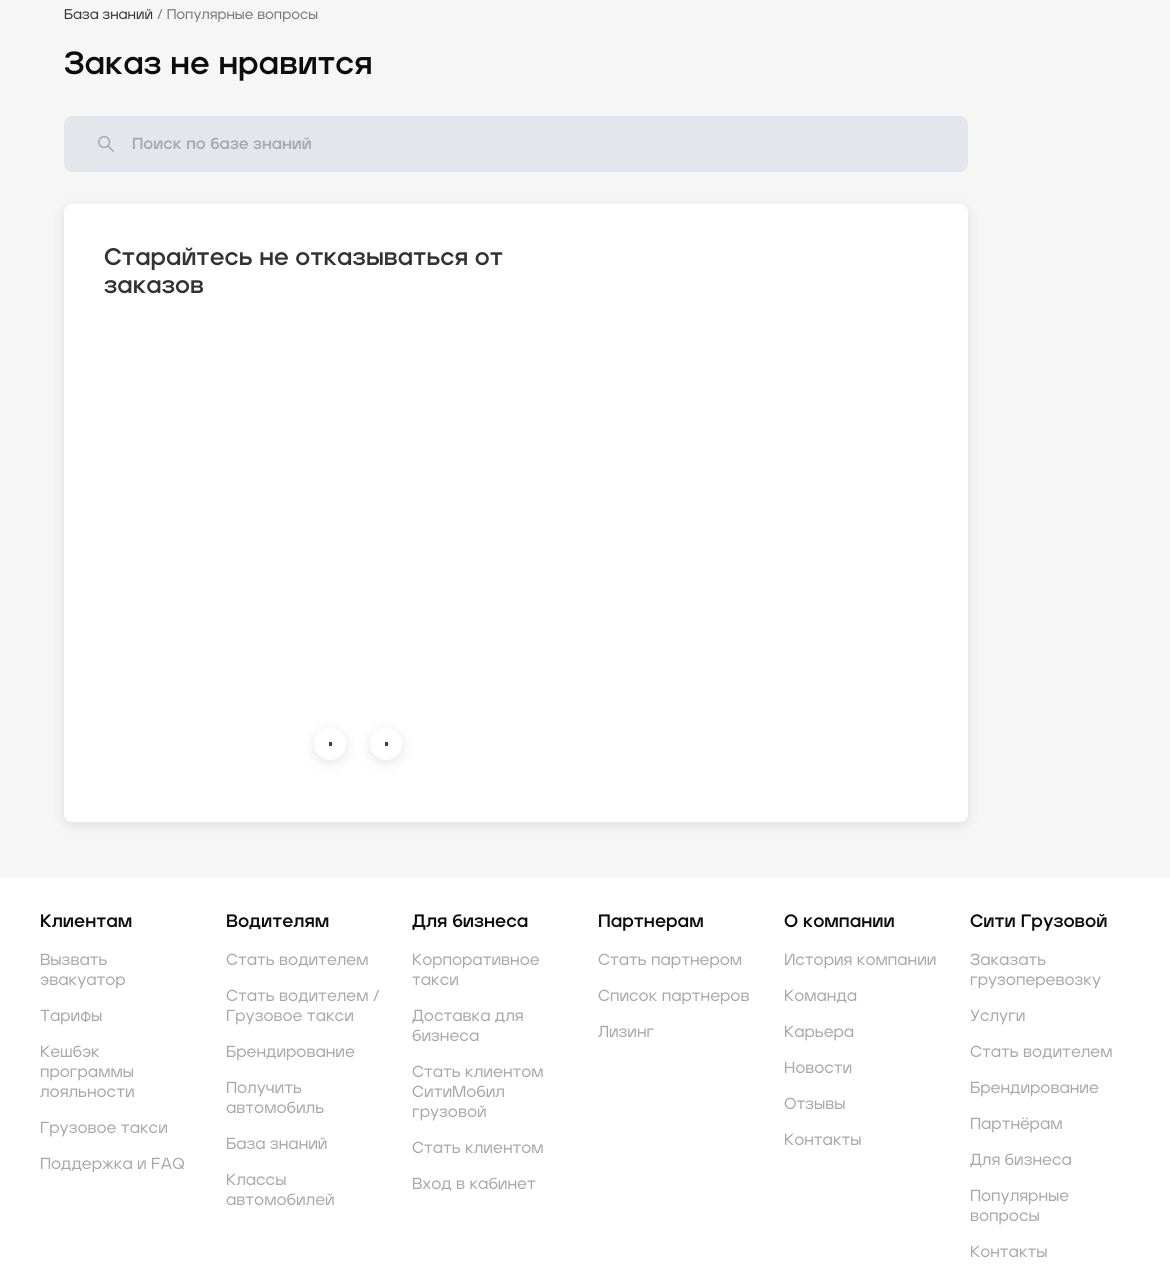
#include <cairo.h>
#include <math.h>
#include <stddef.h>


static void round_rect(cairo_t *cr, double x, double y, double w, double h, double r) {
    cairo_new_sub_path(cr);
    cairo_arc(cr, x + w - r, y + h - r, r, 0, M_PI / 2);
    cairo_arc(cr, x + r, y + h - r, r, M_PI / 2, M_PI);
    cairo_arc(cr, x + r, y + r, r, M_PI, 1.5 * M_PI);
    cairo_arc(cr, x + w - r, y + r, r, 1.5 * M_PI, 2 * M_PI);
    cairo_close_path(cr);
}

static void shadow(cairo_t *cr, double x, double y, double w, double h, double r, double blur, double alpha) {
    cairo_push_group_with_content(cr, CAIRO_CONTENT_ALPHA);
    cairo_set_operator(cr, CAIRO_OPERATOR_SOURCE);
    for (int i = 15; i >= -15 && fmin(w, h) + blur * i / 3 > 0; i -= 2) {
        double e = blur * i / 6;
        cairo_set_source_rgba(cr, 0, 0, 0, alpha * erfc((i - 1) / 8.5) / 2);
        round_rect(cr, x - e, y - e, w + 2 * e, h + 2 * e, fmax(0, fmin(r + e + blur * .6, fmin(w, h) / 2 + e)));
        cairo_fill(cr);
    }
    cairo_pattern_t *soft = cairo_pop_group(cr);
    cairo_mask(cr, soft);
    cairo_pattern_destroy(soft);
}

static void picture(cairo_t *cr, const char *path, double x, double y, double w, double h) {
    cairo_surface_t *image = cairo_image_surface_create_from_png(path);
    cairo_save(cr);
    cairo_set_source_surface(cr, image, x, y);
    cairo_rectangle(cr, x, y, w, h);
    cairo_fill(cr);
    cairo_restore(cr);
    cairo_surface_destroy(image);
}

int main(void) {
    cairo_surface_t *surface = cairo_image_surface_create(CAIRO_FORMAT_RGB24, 1170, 1269);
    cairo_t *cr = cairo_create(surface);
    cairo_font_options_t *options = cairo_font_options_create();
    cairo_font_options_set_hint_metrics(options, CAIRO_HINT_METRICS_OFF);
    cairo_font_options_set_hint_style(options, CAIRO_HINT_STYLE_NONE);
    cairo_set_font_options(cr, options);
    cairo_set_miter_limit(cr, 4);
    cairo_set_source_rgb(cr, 1, 1, 1);
    cairo_paint(cr);
    cairo_set_source_rgb(cr, 0.961, 0.961, 0.961);
    cairo_rectangle(cr, 0, 0, 1170, 878);
    cairo_fill(cr);
    cairo_select_font_face(cr, "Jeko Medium", CAIRO_FONT_SLANT_NORMAL, CAIRO_FONT_WEIGHT_NORMAL);
    cairo_set_font_size(cr, 14);
    cairo_set_source_rgb(cr, 0.2, 0.2, 0.2);
    cairo_move_to(cr, 64, 19);
    cairo_show_text(cr, "База знаний");
    cairo_set_source_rgb(cr, 0.463, 0.463, 0.478);
    cairo_move_to(cr, 157, 19);
    cairo_show_text(cr, "/ Популярные вопросы");
    cairo_select_font_face(cr, "Jeko", CAIRO_FONT_SLANT_NORMAL, CAIRO_FONT_WEIGHT_BOLD);
    cairo_set_font_size(cr, 32);
    cairo_set_source_rgb(cr, 0.047, 0.047, 0.047);
    cairo_move_to(cr, 64, 74);
    cairo_show_text(cr, "Заказ не нравится");
    cairo_set_source_rgb(cr, 0.898, 0.898, 0.922);
    round_rect(cr, 64, 116, 904, 56, 8);
    cairo_fill(cr);
    picture(cr, "img1.png", 98, 135, 16, 17);
    cairo_set_font_size(cr, 16);
    cairo_set_source_rgb(cr, 0.655, 0.659, 0.671);
    cairo_move_to(cr, 132, 149);
    cairo_show_text(cr, "Поиск по базе знаний");
    cairo_set_source_rgb(cr, 0, 0, 0);
    shadow(cr, 64, 207, 904, 618, 8, 6, 0.1);
    cairo_set_source_rgb(cr, 1, 1, 1);
    round_rect(cr, 64, 204, 904, 618, 8);
    cairo_fill(cr);
    cairo_set_font_size(cr, 24);
    cairo_set_source_rgb(cr, 0.2, 0.2, 0.2);
    cairo_move_to(cr, 104, 265);
    cairo_show_text(cr, "Старайтесь не отказываться от");
    cairo_move_to(cr, 104, 293);
    cairo_show_text(cr, "заказов");
    cairo_set_source_rgb(cr, 0, 0, 0);
    shadow(cr, 314, 731, 32, 32, 16, 6, 0.1);
    cairo_set_source_rgb(cr, 1, 1, 1);
    cairo_arc(cr, 330, 744, 16, 0, 2 * M_PI);
    cairo_fill(cr);
    cairo_set_source_rgb(cr, 0.239, 0.239, 0.239);
    cairo_rectangle(cr, 329, 742, 3, 4);
    cairo_fill(cr);
    cairo_set_source_rgb(cr, 0, 0, 0);
    shadow(cr, 370, 731, 32, 32, 16, 6, 0.1);
    cairo_set_source_rgb(cr, 1, 1, 1);
    cairo_arc(cr, 386, 744, 16, 0, 2 * M_PI);
    cairo_fill(cr);
    cairo_set_source_rgb(cr, 0.239, 0.239, 0.239);
    cairo_rectangle(cr, 385, 742, 3, 4);
    cairo_fill(cr);
    cairo_set_font_size(cr, 18);
    cairo_set_source_rgb(cr, 0.047, 0.047, 0.047);
    cairo_move_to(cr, 40, 927);
    cairo_show_text(cr, "Клиентам");
    cairo_select_font_face(cr, "Jeko Medium", CAIRO_FONT_SLANT_NORMAL, CAIRO_FONT_WEIGHT_NORMAL);
    cairo_set_font_size(cr, 16);
    cairo_set_source_rgb(cr, 0.655, 0.659, 0.671);
    cairo_move_to(cr, 40, 965);
    cairo_show_text(cr, "Вызвать");
    cairo_move_to(cr, 40, 985);
    cairo_show_text(cr, "эвакуатор");
    cairo_move_to(cr, 40, 1021);
    cairo_show_text(cr, "Тарифы");
    cairo_move_to(cr, 40, 1057);
    cairo_show_text(cr, "Кешбэк");
    cairo_move_to(cr, 40, 1077);
    cairo_show_text(cr, "программы");
    cairo_move_to(cr, 40, 1097);
    cairo_show_text(cr, "лояльности");
    cairo_move_to(cr, 40, 1133);
    cairo_show_text(cr, "Грузовое такси");
    cairo_move_to(cr, 40, 1169);
    cairo_show_text(cr, "Поддержка и FAQ");
    cairo_select_font_face(cr, "Jeko", CAIRO_FONT_SLANT_NORMAL, CAIRO_FONT_WEIGHT_BOLD);
    cairo_set_font_size(cr, 18);
    cairo_set_source_rgb(cr, 0.047, 0.047, 0.047);
    cairo_move_to(cr, 226, 927);
    cairo_show_text(cr, "Водителям");
    cairo_select_font_face(cr, "Jeko Medium", CAIRO_FONT_SLANT_NORMAL, CAIRO_FONT_WEIGHT_NORMAL);
    cairo_set_font_size(cr, 16);
    cairo_set_source_rgb(cr, 0.655, 0.659, 0.671);
    cairo_move_to(cr, 226, 965);
    cairo_show_text(cr, "Стать водителем");
    cairo_move_to(cr, 226, 1001);
    cairo_show_text(cr, "Стать водителем /");
    cairo_move_to(cr, 226, 1021);
    cairo_show_text(cr, "Грузовое такси");
    cairo_move_to(cr, 226, 1057);
    cairo_show_text(cr, "Брендирование");
    cairo_move_to(cr, 226, 1093);
    cairo_show_text(cr, "Получить");
    cairo_move_to(cr, 226, 1113);
    cairo_show_text(cr, "автомобиль");
    cairo_move_to(cr, 226, 1149);
    cairo_show_text(cr, "База знаний");
    cairo_move_to(cr, 226, 1185);
    cairo_show_text(cr, "Классы");
    cairo_move_to(cr, 226, 1205);
    cairo_show_text(cr, "автомобилей");
    cairo_select_font_face(cr, "Jeko", CAIRO_FONT_SLANT_NORMAL, CAIRO_FONT_WEIGHT_BOLD);
    cairo_set_font_size(cr, 18);
    cairo_set_source_rgb(cr, 0.047, 0.047, 0.047);
    cairo_move_to(cr, 412, 927);
    cairo_show_text(cr, "Для бизнеса");
    cairo_select_font_face(cr, "Jeko Medium", CAIRO_FONT_SLANT_NORMAL, CAIRO_FONT_WEIGHT_NORMAL);
    cairo_set_font_size(cr, 16);
    cairo_set_source_rgb(cr, 0.655, 0.659, 0.671);
    cairo_move_to(cr, 412, 965);
    cairo_show_text(cr, "Корпоративное");
    cairo_move_to(cr, 412, 985);
    cairo_show_text(cr, "такси");
    cairo_move_to(cr, 412, 1021);
    cairo_show_text(cr, "Доставка для");
    cairo_move_to(cr, 412, 1041);
    cairo_show_text(cr, "бизнеса");
    cairo_move_to(cr, 412, 1077);
    cairo_show_text(cr, "Стать клиентом");
    cairo_move_to(cr, 412, 1097);
    cairo_show_text(cr, "СитиМобил");
    cairo_move_to(cr, 412, 1117);
    cairo_show_text(cr, "грузовой");
    cairo_move_to(cr, 412, 1153);
    cairo_show_text(cr, "Стать клиентом");
    cairo_move_to(cr, 412, 1189);
    cairo_show_text(cr, "Вход в кабинет");
    cairo_select_font_face(cr, "Jeko", CAIRO_FONT_SLANT_NORMAL, CAIRO_FONT_WEIGHT_BOLD);
    cairo_set_font_size(cr, 18);
    cairo_set_source_rgb(cr, 0.047, 0.047, 0.047);
    cairo_move_to(cr, 598, 927);
    cairo_show_text(cr, "Партнерам");
    cairo_select_font_face(cr, "Jeko Medium", CAIRO_FONT_SLANT_NORMAL, CAIRO_FONT_WEIGHT_NORMAL);
    cairo_set_font_size(cr, 16);
    cairo_set_source_rgb(cr, 0.655, 0.659, 0.671);
    cairo_move_to(cr, 598, 965);
    cairo_show_text(cr, "Стать партнером");
    cairo_move_to(cr, 598, 1001);
    cairo_show_text(cr, "Список партнеров");
    cairo_move_to(cr, 598, 1037);
    cairo_show_text(cr, "Лизинг");
    cairo_select_font_face(cr, "Jeko", CAIRO_FONT_SLANT_NORMAL, CAIRO_FONT_WEIGHT_BOLD);
    cairo_set_font_size(cr, 18);
    cairo_set_source_rgb(cr, 0.047, 0.047, 0.047);
    cairo_move_to(cr, 784, 927);
    cairo_show_text(cr, "О компании");
    cairo_select_font_face(cr, "Jeko Medium", CAIRO_FONT_SLANT_NORMAL, CAIRO_FONT_WEIGHT_NORMAL);
    cairo_set_font_size(cr, 16);
    cairo_set_source_rgb(cr, 0.655, 0.659, 0.671);
    cairo_move_to(cr, 784, 965);
    cairo_show_text(cr, "История компании");
    cairo_move_to(cr, 784, 1001);
    cairo_show_text(cr, "Команда");
    cairo_move_to(cr, 784, 1037);
    cairo_show_text(cr, "Карьера");
    cairo_move_to(cr, 784, 1073);
    cairo_show_text(cr, "Новости");
    cairo_move_to(cr, 784, 1109);
    cairo_show_text(cr, "Отзывы");
    cairo_move_to(cr, 784, 1145);
    cairo_show_text(cr, "Контакты");
    cairo_select_font_face(cr, "Jeko", CAIRO_FONT_SLANT_NORMAL, CAIRO_FONT_WEIGHT_BOLD);
    cairo_set_font_size(cr, 18);
    cairo_set_source_rgb(cr, 0.047, 0.047, 0.047);
    cairo_move_to(cr, 970, 927);
    cairo_show_text(cr, "Сити Грузовой");
    cairo_select_font_face(cr, "Jeko Medium", CAIRO_FONT_SLANT_NORMAL, CAIRO_FONT_WEIGHT_NORMAL);
    cairo_set_font_size(cr, 16);
    cairo_set_source_rgb(cr, 0.655, 0.659, 0.671);
    cairo_move_to(cr, 970, 965);
    cairo_show_text(cr, "Заказать");
    cairo_move_to(cr, 970, 985);
    cairo_show_text(cr, "грузоперевозку");
    cairo_move_to(cr, 970, 1021);
    cairo_show_text(cr, "Услуги");
    cairo_move_to(cr, 970, 1057);
    cairo_show_text(cr, "Стать водителем");
    cairo_move_to(cr, 970, 1093);
    cairo_show_text(cr, "Брендирование");
    cairo_move_to(cr, 970, 1129);
    cairo_show_text(cr, "Партнёрам");
    cairo_move_to(cr, 970, 1165);
    cairo_show_text(cr, "Для бизнеса");
    cairo_move_to(cr, 970, 1201);
    cairo_show_text(cr, "Популярные");
    cairo_move_to(cr, 970, 1221);
    cairo_show_text(cr, "вопросы");
    cairo_move_to(cr, 970, 1257);
    cairo_show_text(cr, "Контакты");
    cairo_surface_write_to_png(surface, "page.png");
    cairo_font_options_destroy(options);
    cairo_destroy(cr);
    cairo_surface_destroy(surface);
    return 0;
}
